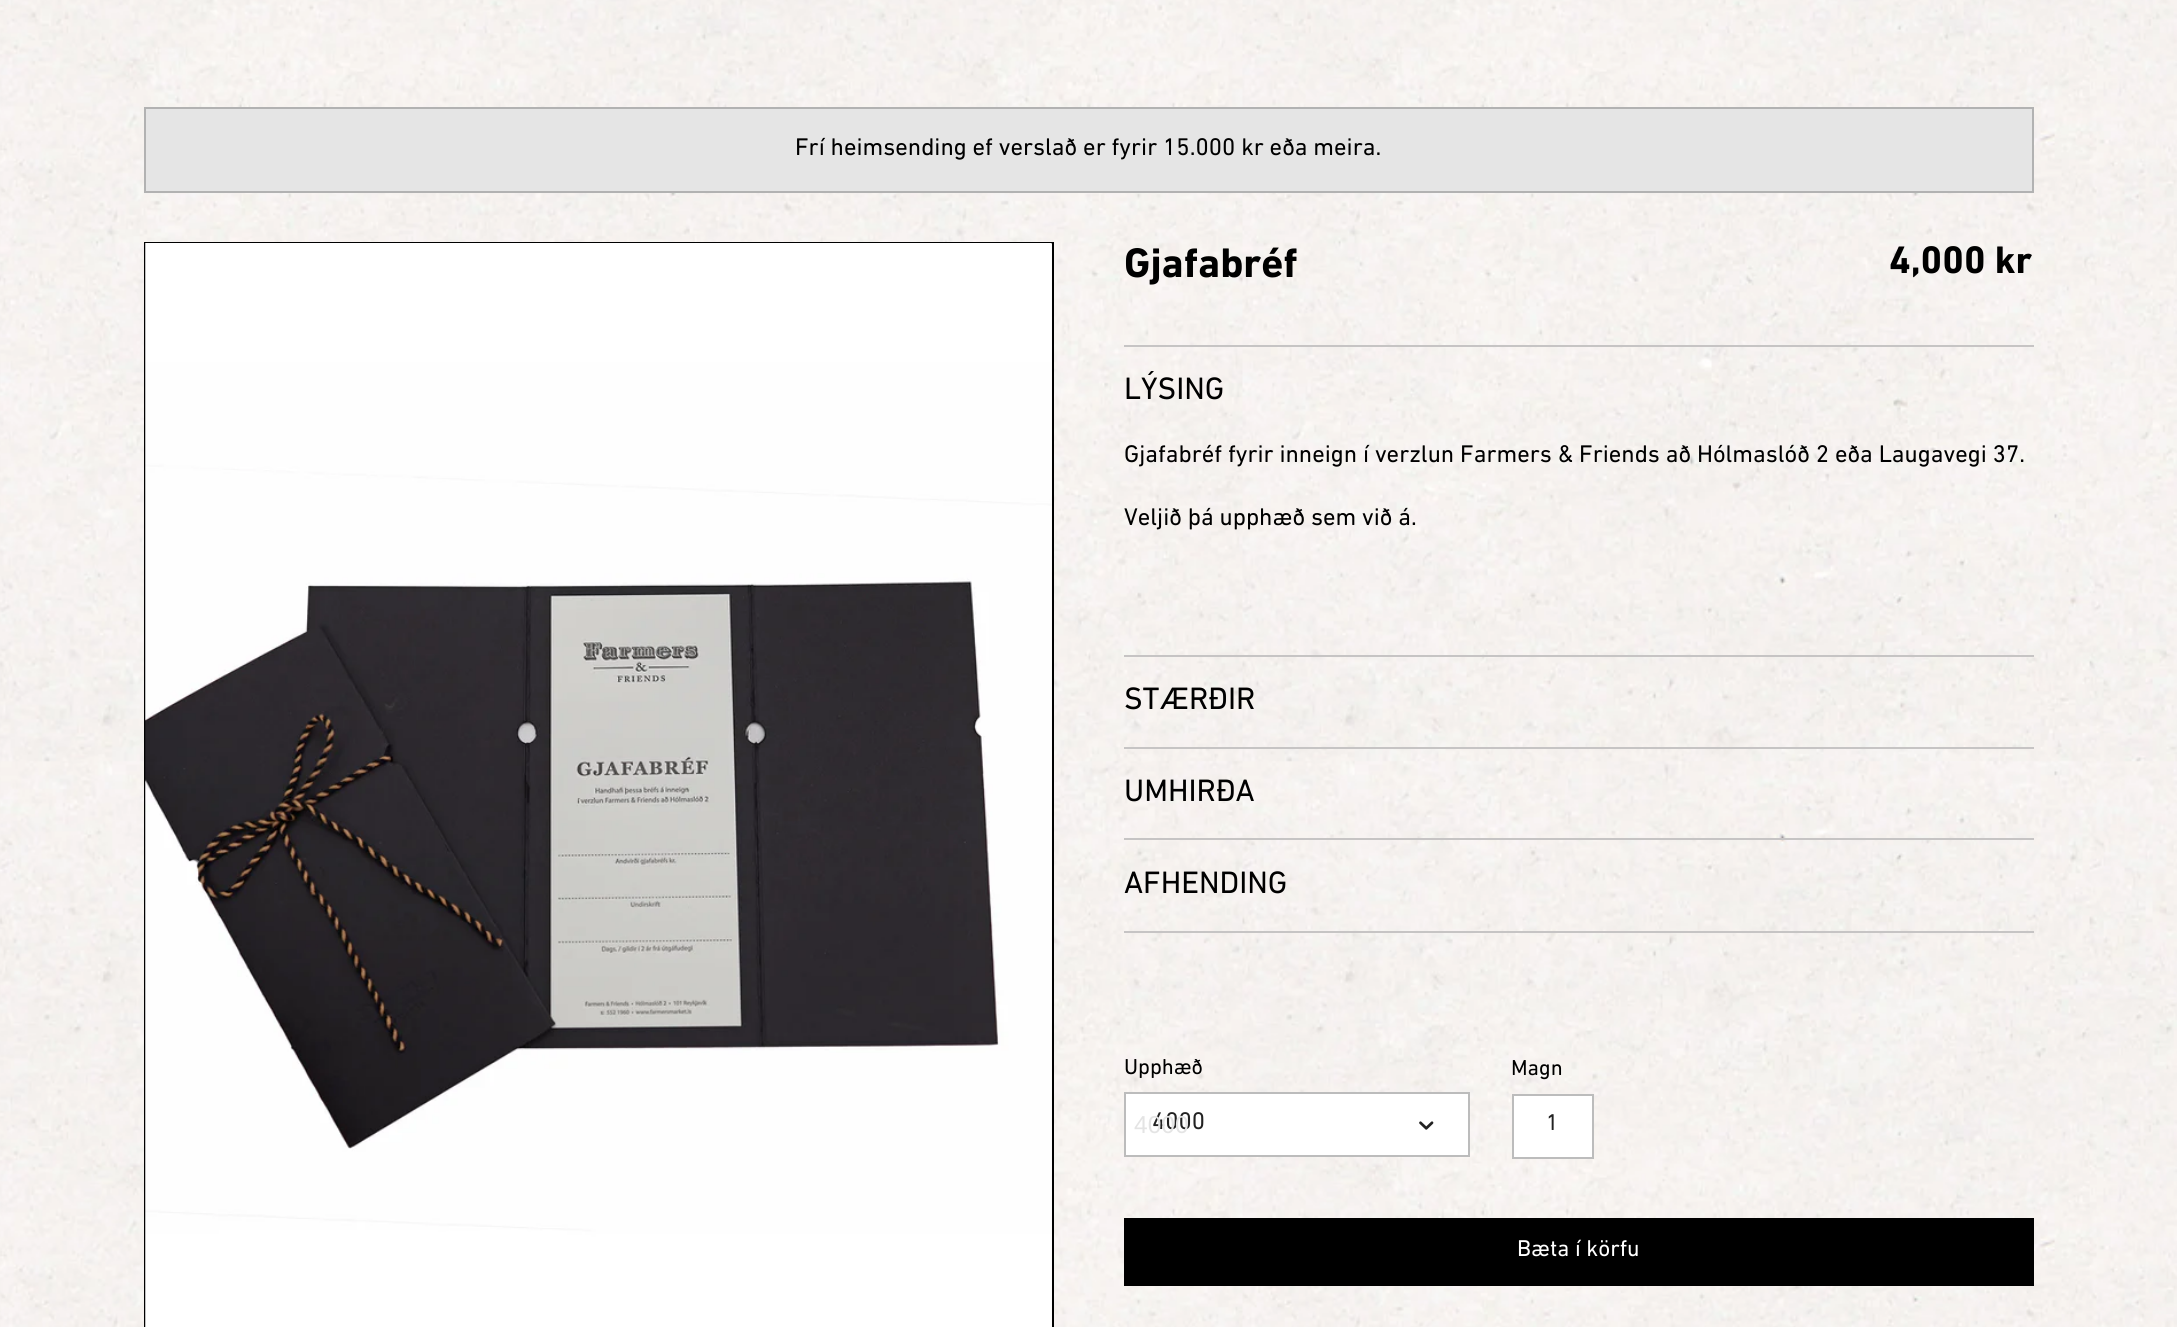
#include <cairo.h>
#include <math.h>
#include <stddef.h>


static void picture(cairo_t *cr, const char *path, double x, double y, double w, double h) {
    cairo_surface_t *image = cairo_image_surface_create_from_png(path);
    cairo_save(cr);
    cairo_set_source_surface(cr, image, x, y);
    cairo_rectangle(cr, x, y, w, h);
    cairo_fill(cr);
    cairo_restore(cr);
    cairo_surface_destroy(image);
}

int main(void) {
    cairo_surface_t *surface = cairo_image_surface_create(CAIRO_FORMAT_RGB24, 2177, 1327);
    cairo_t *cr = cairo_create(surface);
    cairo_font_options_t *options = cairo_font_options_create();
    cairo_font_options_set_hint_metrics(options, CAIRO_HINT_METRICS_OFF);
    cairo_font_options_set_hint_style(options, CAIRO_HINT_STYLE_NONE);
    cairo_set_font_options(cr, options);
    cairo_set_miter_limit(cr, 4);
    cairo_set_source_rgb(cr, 1, 1, 1);
    cairo_paint(cr);
    picture(cr, "img1.png", 0, 0, 2177, 1327);
    cairo_set_source_rgb(cr, 0.898, 0.898, 0.898);
    cairo_rectangle(cr, 145, 108, 1888, 84);
    cairo_fill_preserve(cr);
    cairo_set_source_rgb(cr, 0.698, 0.698, 0.698);
    cairo_stroke(cr);
    cairo_select_font_face(cr, "DIN Next", CAIRO_FONT_SLANT_NORMAL, CAIRO_FONT_WEIGHT_NORMAL);
    cairo_set_font_size(cr, 24.5);
    cairo_set_source_rgb(cr, 0, 0, 0);
    cairo_move_to(cr, 795, 155);
    cairo_show_text(cr, "Frí heimsending ef verslað er fyrir 15.000 kr eða meira.");
    cairo_rectangle(cr, 145, 243, 908, 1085);
    cairo_stroke(cr);
    picture(cr, "img2.png", 145, 243, 907, 1084);
    cairo_select_font_face(cr, "DIN Next", CAIRO_FONT_SLANT_NORMAL, CAIRO_FONT_WEIGHT_BOLD);
    cairo_set_font_size(cr, 42);
    cairo_move_to(cr, 1124, 277);
    cairo_show_text(cr, "Gjafabréf");
    cairo_set_font_size(cr, 39);
    cairo_move_to(cr, 1889, 273);
    cairo_show_text(cr, "4,000 kr");
    cairo_set_source_rgb(cr, 0.776, 0.769, 0.769);
    cairo_rectangle(cr, 1124, 931, 910, 2);
    cairo_fill(cr);
    cairo_rectangle(cr, 1124, 345, 910, 2);
    cairo_fill(cr);
    cairo_select_font_face(cr, "DIN Next", CAIRO_FONT_SLANT_NORMAL, CAIRO_FONT_WEIGHT_NORMAL);
    cairo_set_font_size(cr, 31.5);
    cairo_set_source_rgb(cr, 0, 0, 0);
    cairo_move_to(cr, 1124, 399);
    cairo_show_text(cr, "LÝSING");
    cairo_set_font_size(cr, 24.5);
    cairo_move_to(cr, 1124, 462);
    cairo_show_text(cr, "Gjafabréf fyrir inneign í verzlun Farmers & Friends að Hólmaslóð 2 eða Laugavegi 37.");
    cairo_move_to(cr, 1124, 525);
    cairo_show_text(cr, "Veljið þá upphæð sem við á.");
    cairo_set_source_rgb(cr, 0.776, 0.769, 0.769);
    cairo_rectangle(cr, 1124, 655, 910, 2);
    cairo_fill(cr);
    cairo_set_font_size(cr, 31.5);
    cairo_set_source_rgb(cr, 0, 0, 0);
    cairo_move_to(cr, 1124, 709);
    cairo_show_text(cr, "STÆRÐIR");
    cairo_set_source_rgb(cr, 0.776, 0.769, 0.769);
    cairo_rectangle(cr, 1124, 747, 910, 2);
    cairo_fill(cr);
    cairo_set_source_rgb(cr, 0, 0, 0);
    cairo_move_to(cr, 1124, 801);
    cairo_show_text(cr, "UMHIRÐA");
    cairo_set_source_rgb(cr, 0.776, 0.769, 0.769);
    cairo_rectangle(cr, 1124, 838, 910, 2);
    cairo_fill(cr);
    cairo_set_source_rgb(cr, 0, 0, 0);
    cairo_move_to(cr, 1124, 893);
    cairo_show_text(cr, "AFHENDING");
    cairo_set_font_size(cr, 22);
    cairo_move_to(cr, 1124, 1074);
    cairo_show_text(cr, "Upphæð");
    cairo_set_source_rgb(cr, 1, 1, 1);
    cairo_rectangle(cr, 1125, 1093, 344, 63);
    cairo_fill_preserve(cr);
    cairo_set_source_rgb(cr, 0.737, 0.737, 0.737);
    cairo_stroke(cr);
    cairo_set_font_size(cr, 24.5);
    cairo_set_source_rgb(cr, 0.133, 0.133, 0.133);
    cairo_move_to(cr, 1152, 1129);
    cairo_show_text(cr, "4000");
    cairo_select_font_face(cr, "Liberation Sans", CAIRO_FONT_SLANT_NORMAL, CAIRO_FONT_WEIGHT_NORMAL);
    cairo_set_source_rgb(cr, 0.894, 0.894, 0.894);
    cairo_move_to(cr, 1134, 1133);
    cairo_show_text(cr, "4000");
    picture(cr, "img3.png", 1419, 1121, 15, 9);
    cairo_select_font_face(cr, "DIN Next", CAIRO_FONT_SLANT_NORMAL, CAIRO_FONT_WEIGHT_NORMAL);
    cairo_set_font_size(cr, 22);
    cairo_set_source_rgb(cr, 0, 0, 0);
    cairo_move_to(cr, 1511, 1075);
    cairo_show_text(cr, "Magn");
    cairo_set_source_rgb(cr, 1, 1, 1);
    cairo_rectangle(cr, 1513, 1095, 80, 63);
    cairo_fill_preserve(cr);
    cairo_set_source_rgb(cr, 0.737, 0.737, 0.737);
    cairo_stroke(cr);
    cairo_set_font_size(cr, 23.25);
    cairo_set_source_rgb(cr, 0.133, 0.133, 0.133);
    cairo_move_to(cr, 1546, 1130);
    cairo_show_text(cr, "1");
    cairo_set_source_rgb(cr, 0, 0, 0);
    cairo_rectangle(cr, 1124, 1218, 910, 68);
    cairo_fill(cr);
    cairo_set_source_rgb(cr, 1, 1, 1);
    cairo_move_to(cr, 1517, 1256);
    cairo_show_text(cr, "Bæta í körfu");
    cairo_surface_write_to_png(surface, "page.png");
    cairo_font_options_destroy(options);
    cairo_destroy(cr);
    cairo_surface_destroy(surface);
    return 0;
}
